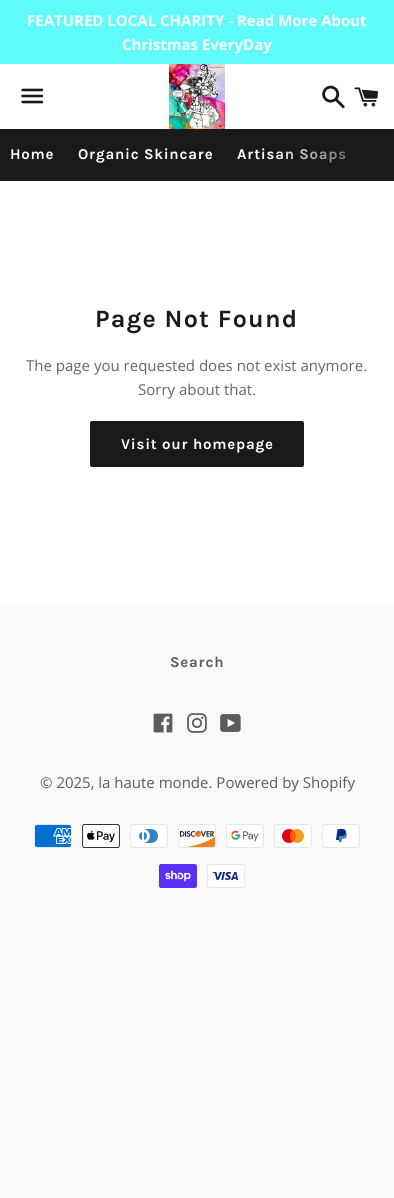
#include <cairo.h>
#include <math.h>
#include <stddef.h>


static void spaced_text(cairo_t *cr, double x, double y, const char *s, double letter, double word) {
    cairo_move_to(cr, x, y);
    while (*s) {
        char ch[5] = {0};
        int n = 0;
        do ch[n++] = *s++; while ((*s & 0xC0) == 0x80);
        cairo_show_text(cr, ch);
        cairo_rel_move_to(cr, letter + word * (*ch == ' '), 0);
    }
}

static void round_rect(cairo_t *cr, double x, double y, double w, double h, double r) {
    cairo_new_sub_path(cr);
    cairo_arc(cr, x + w - r, y + h - r, r, 0, M_PI / 2);
    cairo_arc(cr, x + r, y + h - r, r, M_PI / 2, M_PI);
    cairo_arc(cr, x + r, y + r, r, M_PI, 1.5 * M_PI);
    cairo_arc(cr, x + w - r, y + r, r, 1.5 * M_PI, 2 * M_PI);
    cairo_close_path(cr);
}

static void picture(cairo_t *cr, const char *path, double x, double y, double w, double h) {
    cairo_surface_t *image = cairo_image_surface_create_from_png(path);
    cairo_save(cr);
    cairo_set_source_surface(cr, image, x, y);
    cairo_rectangle(cr, x, y, w, h);
    cairo_fill(cr);
    cairo_restore(cr);
    cairo_surface_destroy(image);
}

int main(void) {
    cairo_surface_t *surface = cairo_image_surface_create(CAIRO_FORMAT_RGB24, 394, 1198);
    cairo_t *cr = cairo_create(surface);
    cairo_font_options_t *options = cairo_font_options_create();
    cairo_font_options_set_hint_metrics(options, CAIRO_HINT_METRICS_OFF);
    cairo_font_options_set_hint_style(options, CAIRO_HINT_STYLE_NONE);
    cairo_set_font_options(cr, options);
    cairo_set_miter_limit(cr, 4);
    cairo_pattern_t *gradient;
    cairo_set_source_rgb(cr, 0.976, 0.976, 0.976);
    cairo_paint(cr);
    cairo_set_source_rgb(cr, 1, 1, 1);
    cairo_rectangle(cr, 0, 64, 394, 543);
    cairo_fill(cr);
    cairo_set_source_rgb(cr, 0.376, 0.984, 0.984);
    cairo_rectangle(cr, 0, 0, 394, 64);
    cairo_fill(cr);
    cairo_select_font_face(cr, "Open Sans", CAIRO_FONT_SLANT_NORMAL, CAIRO_FONT_WEIGHT_BOLD);
    cairo_set_font_size(cr, 15);
    cairo_set_source_rgb(cr, 1, 1, 1);
    cairo_move_to(cr, 27, 26);
    cairo_show_text(cr, "FEATURED LOCAL CHARITY - Read More About");
    cairo_move_to(cr, 122, 50);
    cairo_show_text(cr, "Christmas EveryDay");
    picture(cr, "img1.png", 21, 88, 23, 16);
    picture(cr, "img2.png", 169, 64, 56, 65);
    picture(cr, "img3.png", 322, 85, 23, 24);
    picture(cr, "img4.png", 354, 87, 25, 20);
    cairo_set_source_rgb(cr, 0.102, 0.102, 0.102);
    cairo_rectangle(cr, 0, 129, 393, 52);
    cairo_fill(cr);
    cairo_select_font_face(cr, "Karla", CAIRO_FONT_SLANT_NORMAL, CAIRO_FONT_WEIGHT_BOLD);
    cairo_set_source_rgb(cr, 1, 1, 1);
    spaced_text(cr, 237, 159, "Artisan Soaps", 0.75, 0);
    gradient = cairo_pattern_create_linear(269, 155, 394, 155);
    cairo_pattern_add_color_stop_rgba(gradient, 0, 0.102, 0.102, 0.102, 0);
    cairo_pattern_add_color_stop_rgba(gradient, 1, 0.102, 0.102, 0.102, 1);
    cairo_set_source(cr, gradient);
    cairo_pattern_destroy(gradient);
    cairo_rectangle(cr, 272, 129, 122, 52);
    cairo_fill(cr);
    cairo_set_source_rgb(cr, 1, 1, 1);
    spaced_text(cr, 10, 159, "Home", 0.75, 0);
    spaced_text(cr, 78, 159, "Organic Skincare", 0.75, 0);
    cairo_set_font_size(cr, 25);
    cairo_set_source_rgb(cr, 0.102, 0.102, 0.102);
    spaced_text(cr, 95, 327, "Page Not Found", 1.25, 0);
    cairo_select_font_face(cr, "Open Sans", CAIRO_FONT_SLANT_NORMAL, CAIRO_FONT_WEIGHT_NORMAL);
    cairo_set_font_size(cr, 15);
    cairo_set_source_rgb(cr, 0.4, 0.4, 0.4);
    cairo_move_to(cr, 26, 371);
    cairo_show_text(cr, "The page you requested does not exist anymore.");
    cairo_move_to(cr, 138, 395);
    cairo_show_text(cr, "Sorry about that.");
    cairo_set_source_rgb(cr, 0.102, 0.102, 0.102);
    round_rect(cr, 90, 421, 214, 46, 2);
    cairo_fill(cr);
    cairo_select_font_face(cr, "Karla", CAIRO_FONT_SLANT_NORMAL, CAIRO_FONT_WEIGHT_BOLD);
    cairo_set_source_rgb(cr, 1, 1, 1);
    spaced_text(cr, 121, 449, "Visit our homepage", 0.75, 0);
    cairo_set_source_rgb(cr, 0.361, 0.361, 0.361);
    spaced_text(cr, 170, 667, "Search", 0.75, 0);
    picture(cr, "img5.png", 153, 713, 20, 20);
    picture(cr, "img6.png", 187, 713, 20, 20);
    picture(cr, "img7.png", 220, 714, 21, 18);
    cairo_select_font_face(cr, "Open Sans", CAIRO_FONT_SLANT_NORMAL, CAIRO_FONT_WEIGHT_NORMAL);
    cairo_move_to(cr, 40, 788);
    cairo_show_text(cr, "© 2025, la haute monde. Powered by Shopify");
    picture(cr, "img8.png", 34, 824, 38, 24);
    picture(cr, "img9.png", 82, 824, 38, 24);
    picture(cr, "img10.png", 130, 824, 38, 24);
    picture(cr, "img11.png", 178, 824, 38, 24);
    picture(cr, "img12.png", 226, 824, 38, 24);
    picture(cr, "img13.png", 274, 824, 38, 24);
    picture(cr, "img14.png", 322, 824, 38, 24);
    picture(cr, "img15.png", 159, 864, 38, 24);
    picture(cr, "img16.png", 207, 864, 38, 24);
    cairo_surface_write_to_png(surface, "page.png");
    cairo_font_options_destroy(options);
    cairo_destroy(cr);
    cairo_surface_destroy(surface);
    return 0;
}
